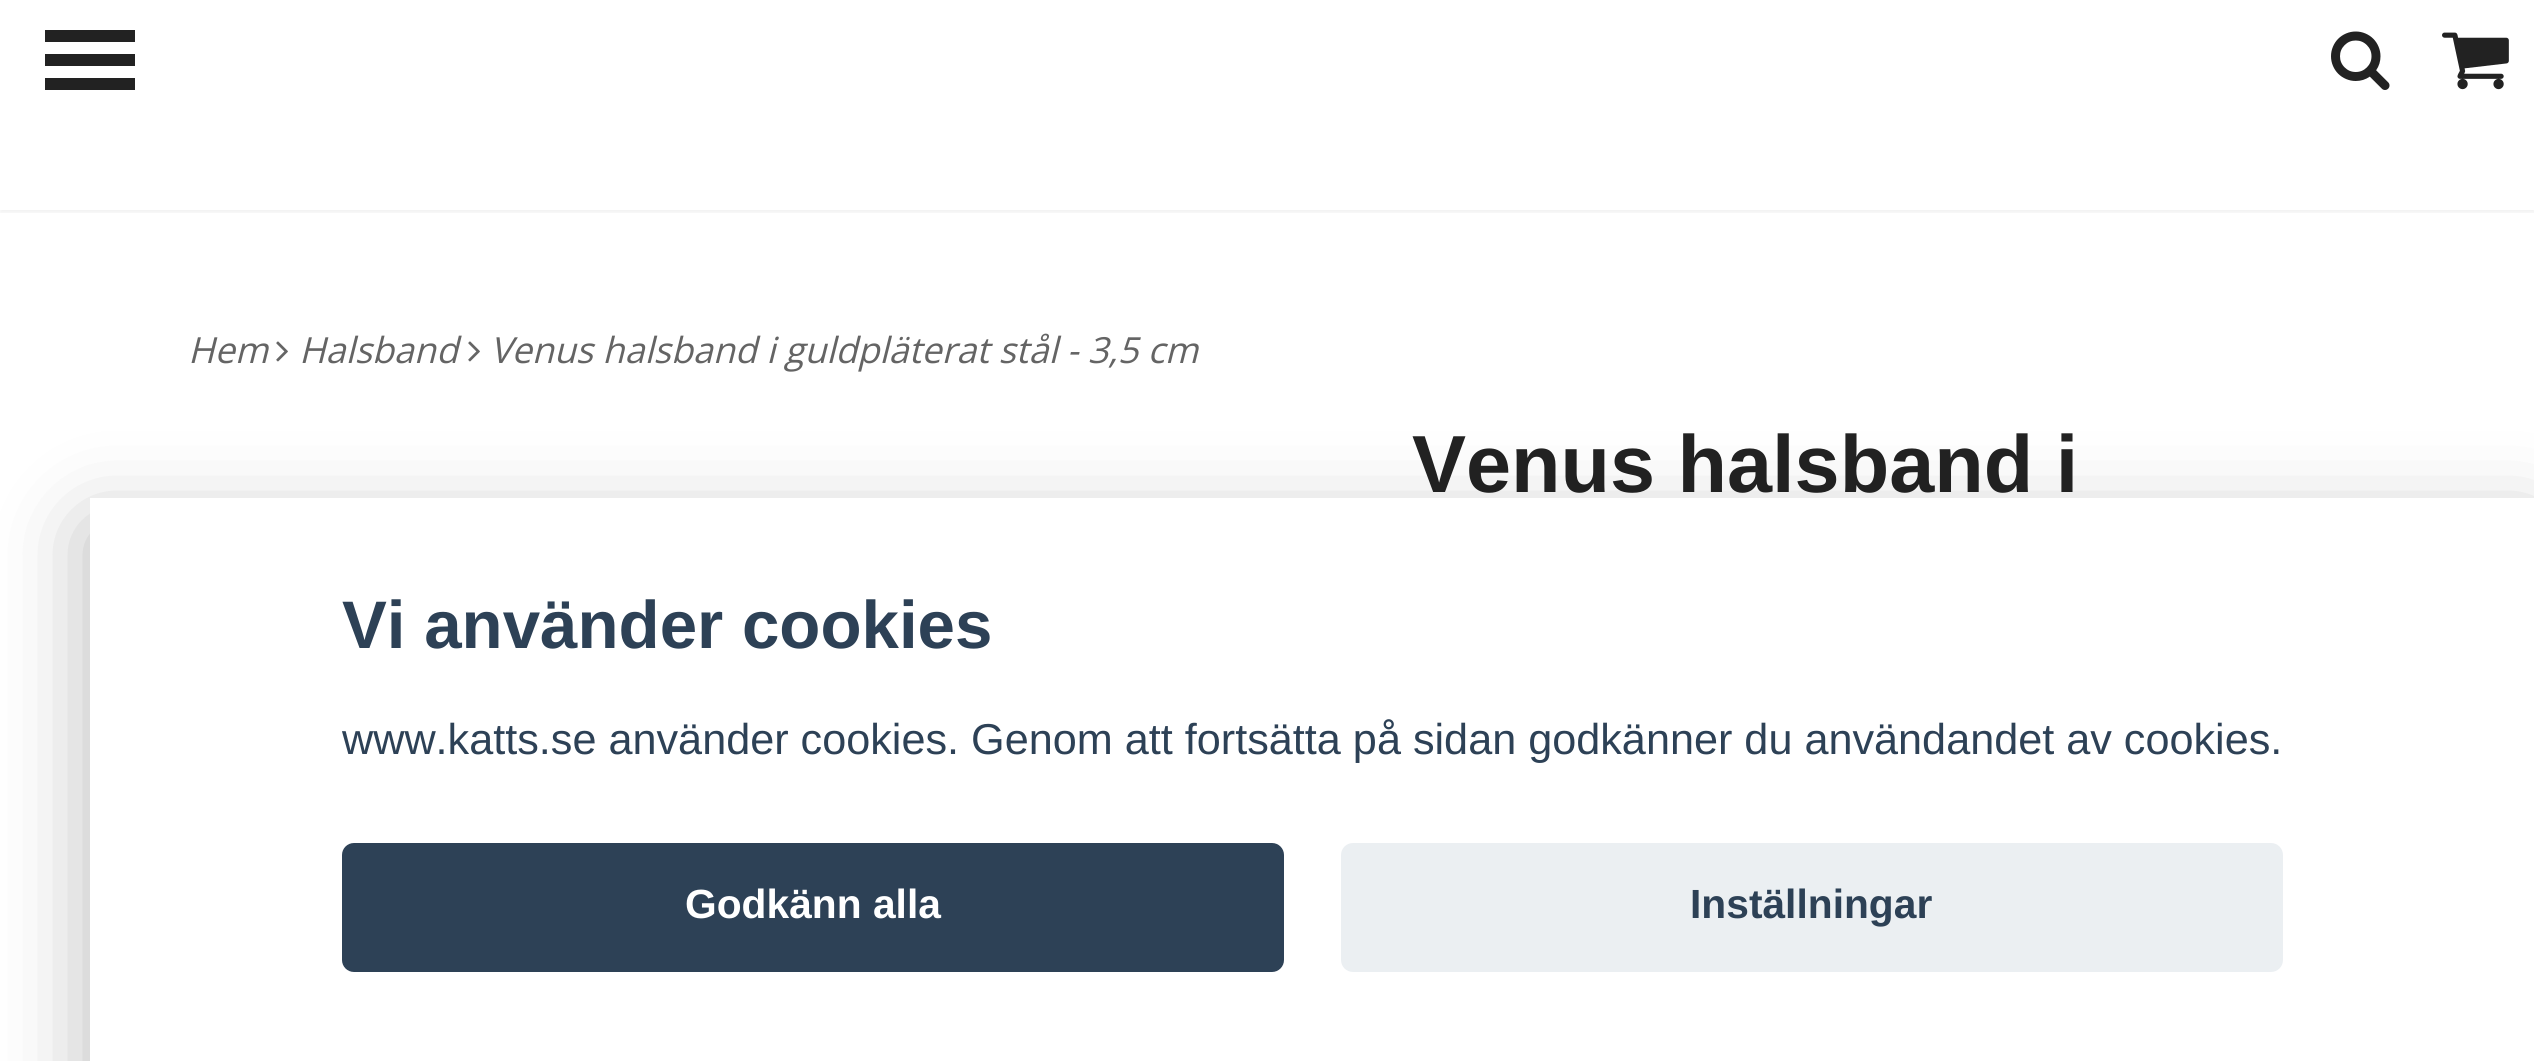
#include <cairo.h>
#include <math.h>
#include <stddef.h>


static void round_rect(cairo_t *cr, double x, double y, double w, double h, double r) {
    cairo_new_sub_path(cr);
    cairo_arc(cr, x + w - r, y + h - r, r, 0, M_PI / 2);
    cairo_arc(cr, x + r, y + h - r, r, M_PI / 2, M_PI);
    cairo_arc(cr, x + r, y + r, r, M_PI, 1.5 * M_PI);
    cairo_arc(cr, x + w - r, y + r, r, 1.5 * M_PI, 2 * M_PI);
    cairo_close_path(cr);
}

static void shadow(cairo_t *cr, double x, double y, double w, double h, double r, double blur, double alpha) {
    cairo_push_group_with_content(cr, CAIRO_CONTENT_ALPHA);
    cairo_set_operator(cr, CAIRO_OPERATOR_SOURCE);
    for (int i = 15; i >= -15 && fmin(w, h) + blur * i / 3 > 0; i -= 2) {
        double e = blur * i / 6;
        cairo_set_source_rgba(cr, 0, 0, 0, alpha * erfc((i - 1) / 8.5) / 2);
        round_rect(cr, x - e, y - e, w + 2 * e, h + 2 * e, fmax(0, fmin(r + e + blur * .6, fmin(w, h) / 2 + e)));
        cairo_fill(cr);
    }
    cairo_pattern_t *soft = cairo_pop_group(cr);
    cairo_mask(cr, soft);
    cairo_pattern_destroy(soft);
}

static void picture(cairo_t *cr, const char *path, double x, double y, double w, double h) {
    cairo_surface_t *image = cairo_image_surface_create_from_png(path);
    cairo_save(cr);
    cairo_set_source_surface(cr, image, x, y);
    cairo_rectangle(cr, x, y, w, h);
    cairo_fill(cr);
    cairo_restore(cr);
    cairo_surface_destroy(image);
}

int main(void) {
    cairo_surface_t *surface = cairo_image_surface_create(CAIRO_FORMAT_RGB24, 2534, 1061);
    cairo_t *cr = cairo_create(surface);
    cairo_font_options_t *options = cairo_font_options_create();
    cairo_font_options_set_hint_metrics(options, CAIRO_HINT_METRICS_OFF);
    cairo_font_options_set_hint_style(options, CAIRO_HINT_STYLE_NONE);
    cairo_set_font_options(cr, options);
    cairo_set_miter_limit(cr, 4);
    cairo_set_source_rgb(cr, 1, 1, 1);
    cairo_paint(cr);
    cairo_save(cr);
    cairo_rectangle(cr, 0, 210, 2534, 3);
    cairo_clip(cr);
    cairo_set_source_rgb(cr, 0, 0, 0);
    shadow(cr, 0, 3, 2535, 210, 0, 1.5, 0.05);
    cairo_restore(cr);
    cairo_set_source_rgb(cr, 0.133, 0.133, 0.133);
    cairo_rectangle(cr, 45, 54, 90, 12);
    cairo_fill(cr);
    cairo_rectangle(cr, 45, 30, 90, 12);
    cairo_fill(cr);
    cairo_rectangle(cr, 45, 78, 90, 12);
    cairo_fill(cr);
    picture(cr, "img1.png", 2331, 31, 59, 59);
    picture(cr, "img2.png", 2442, 32, 67, 58);
    cairo_select_font_face(cr, "Open Sans", CAIRO_FONT_SLANT_ITALIC, CAIRO_FONT_WEIGHT_NORMAL);
    cairo_set_font_size(cr, 36);
    cairo_set_source_rgb(cr, 0.392, 0.392, 0.392);
    cairo_move_to(cr, 188, 363);
    cairo_show_text(cr, "Hem");
    picture(cr, "img3.png", 276, 341, 12, 21);
    cairo_move_to(cr, 299, 363);
    cairo_show_text(cr, "Halsband");
    picture(cr, "img3.png", 468, 341, 12, 21);
    cairo_move_to(cr, 490, 363);
    cairo_show_text(cr, "Venus halsband i guldpläterat stål - 3,5 cm");
    cairo_select_font_face(cr, "Liberation Sans", CAIRO_FONT_SLANT_NORMAL, CAIRO_FONT_WEIGHT_BOLD);
    cairo_set_font_size(cr, 81);
    cairo_set_source_rgb(cr, 0.133, 0.133, 0.133);
    cairo_move_to(cr, 1412, 492);
    cairo_show_text(cr, "Venus halsband i");
    cairo_set_source_rgb(cr, 0.008, 0.008, 0.012);
    shadow(cr, 90, 528, 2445, 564, 0, 45, 0.28);
    cairo_set_source_rgb(cr, 1, 1, 1);
    cairo_rectangle(cr, 90, 498, 2444, 563);
    cairo_fill(cr);
    cairo_set_font_size(cr, 67.25);
    cairo_set_source_rgb(cr, 0.176, 0.255, 0.337);
    cairo_move_to(cr, 342, 648);
    cairo_show_text(cr, "Vi använder cookies");
    cairo_select_font_face(cr, "Liberation Sans", CAIRO_FONT_SLANT_NORMAL, CAIRO_FONT_WEIGHT_NORMAL);
    cairo_set_font_size(cr, 43.2);
    cairo_move_to(cr, 342, 754);
    cairo_show_text(cr, "www.katts.se använder cookies. Genom att fortsätta på sidan godkänner du användandet av cookies.");
    round_rect(cr, 342, 843, 942, 129, 12);
    cairo_fill(cr);
    cairo_select_font_face(cr, "Liberation Sans", CAIRO_FONT_SLANT_NORMAL, CAIRO_FONT_WEIGHT_BOLD);
    cairo_set_font_size(cr, 40.75);
    cairo_set_source_rgb(cr, 1, 1, 1);
    cairo_move_to(cr, 685, 918);
    cairo_show_text(cr, "Godkänn alla");
    cairo_set_source_rgb(cr, 0.918, 0.937, 0.949);
    round_rect(cr, 1341, 843, 942, 129, 12);
    cairo_fill(cr);
    cairo_set_source_rgb(cr, 0.176, 0.255, 0.337);
    cairo_move_to(cr, 1690, 918);
    cairo_show_text(cr, "Inställningar");
    cairo_surface_write_to_png(surface, "page.png");
    cairo_font_options_destroy(options);
    cairo_destroy(cr);
    cairo_surface_destroy(surface);
    return 0;
}
